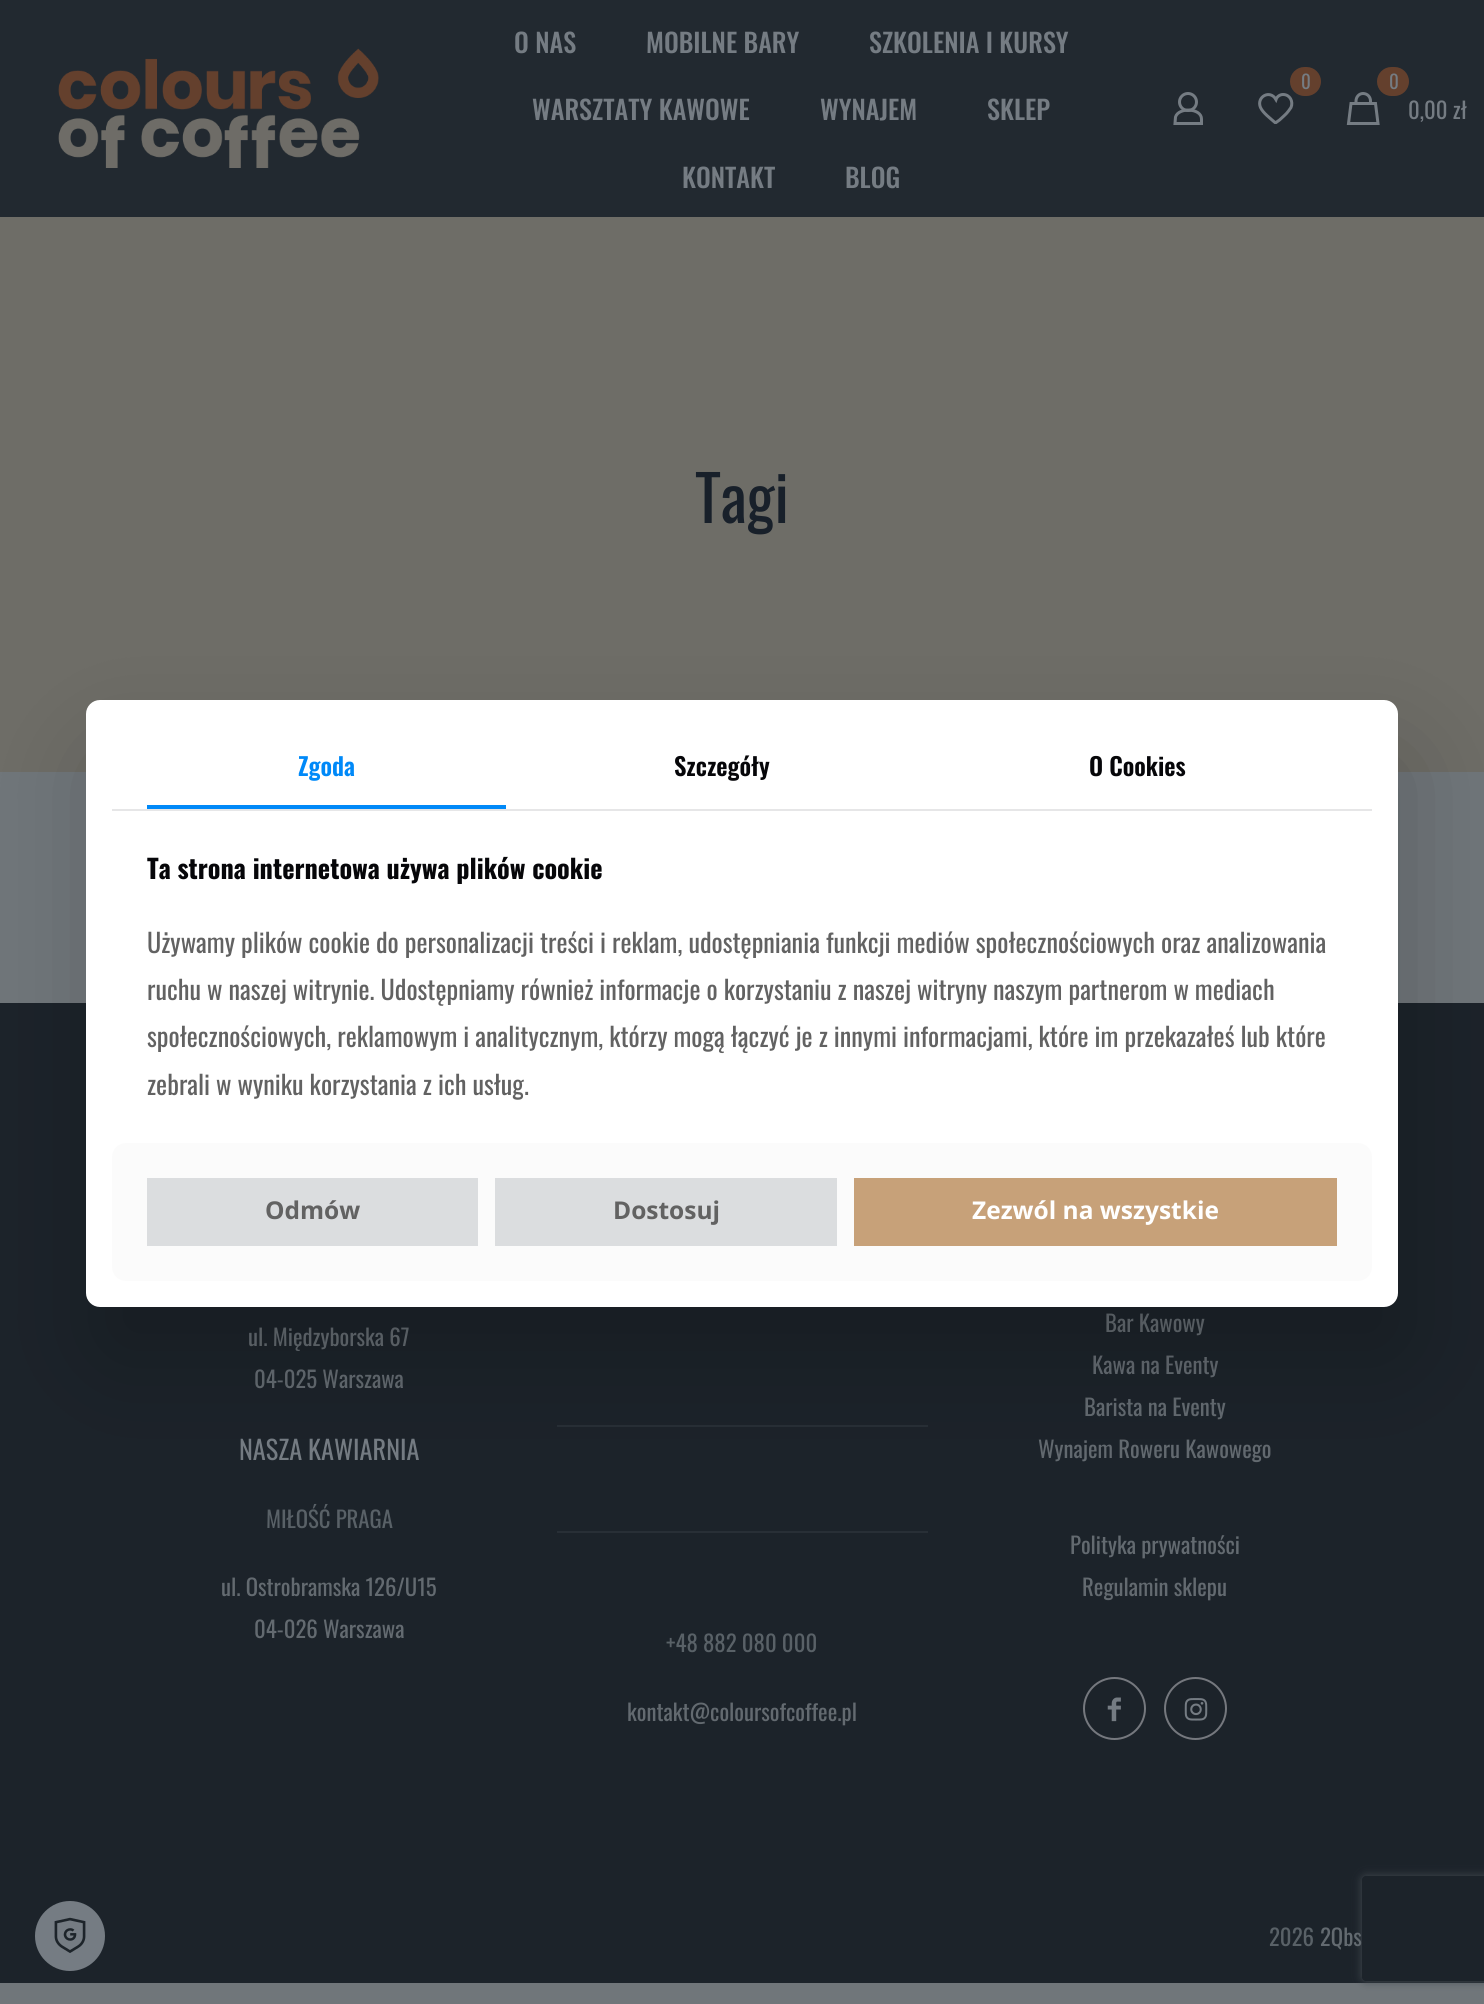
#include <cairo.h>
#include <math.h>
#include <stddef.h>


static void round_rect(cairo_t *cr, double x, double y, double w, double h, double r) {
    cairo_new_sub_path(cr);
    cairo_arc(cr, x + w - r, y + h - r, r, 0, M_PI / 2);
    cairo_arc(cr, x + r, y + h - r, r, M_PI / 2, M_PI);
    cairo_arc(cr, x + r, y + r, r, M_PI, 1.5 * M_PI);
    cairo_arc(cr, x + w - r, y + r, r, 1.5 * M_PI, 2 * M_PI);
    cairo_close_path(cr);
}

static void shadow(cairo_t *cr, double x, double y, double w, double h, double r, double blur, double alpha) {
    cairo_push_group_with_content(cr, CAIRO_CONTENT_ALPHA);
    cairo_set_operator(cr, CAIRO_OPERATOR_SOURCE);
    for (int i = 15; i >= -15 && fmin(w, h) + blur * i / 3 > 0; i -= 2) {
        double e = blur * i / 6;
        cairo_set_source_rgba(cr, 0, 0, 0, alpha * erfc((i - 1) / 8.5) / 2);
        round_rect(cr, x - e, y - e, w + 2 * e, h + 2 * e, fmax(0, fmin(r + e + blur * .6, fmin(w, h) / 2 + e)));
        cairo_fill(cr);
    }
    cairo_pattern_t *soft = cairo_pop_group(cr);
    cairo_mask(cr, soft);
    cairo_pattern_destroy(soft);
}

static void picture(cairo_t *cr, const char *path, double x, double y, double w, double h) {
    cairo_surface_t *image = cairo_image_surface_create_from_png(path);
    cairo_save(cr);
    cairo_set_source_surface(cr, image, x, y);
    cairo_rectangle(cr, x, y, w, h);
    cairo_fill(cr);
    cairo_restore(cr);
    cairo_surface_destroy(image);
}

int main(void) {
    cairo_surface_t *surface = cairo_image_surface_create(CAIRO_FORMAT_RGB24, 1484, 2004);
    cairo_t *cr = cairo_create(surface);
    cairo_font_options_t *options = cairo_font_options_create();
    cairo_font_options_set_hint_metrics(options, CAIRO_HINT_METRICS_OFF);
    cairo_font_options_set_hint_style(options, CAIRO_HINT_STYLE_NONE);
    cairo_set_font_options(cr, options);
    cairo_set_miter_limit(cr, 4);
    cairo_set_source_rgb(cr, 0.439, 0.463, 0.478);
    cairo_paint(cr);
    cairo_set_source_rgb(cr, 0.133, 0.161, 0.188);
    cairo_rectangle(cr, 0, 0, 1484, 217);
    cairo_fill(cr);
    picture(cr, "img1.png", 58, 48, 321, 120);
    cairo_select_font_face(cr, "Oswald Medium", CAIRO_FONT_SLANT_NORMAL, CAIRO_FONT_WEIGHT_NORMAL);
    cairo_set_font_size(cr, 26.25);
    cairo_set_source_rgb(cr, 0.459, 0.486, 0.514);
    cairo_move_to(cr, 514, 53);
    cairo_show_text(cr, "O NAS");
    cairo_move_to(cr, 646, 53);
    cairo_show_text(cr, "MOBILNE BARY");
    cairo_move_to(cr, 869, 53);
    cairo_show_text(cr, "SZKOLENIA I KURSY");
    cairo_move_to(cr, 532, 120);
    cairo_show_text(cr, "WARSZTATY KAWOWE");
    cairo_move_to(cr, 820, 120);
    cairo_show_text(cr, "WYNAJEM");
    cairo_move_to(cr, 987, 120);
    cairo_show_text(cr, "SKLEP");
    cairo_move_to(cr, 682, 188);
    cairo_show_text(cr, "KONTAKT");
    cairo_move_to(cr, 845, 188);
    cairo_show_text(cr, "BLOG");
    cairo_new_path(cr);
    cairo_arc(cr, 1188, 102, 8.5, 0, 2 * M_PI);
    cairo_set_line_width(cr, 3);
    cairo_stroke(cr);
    cairo_new_path(cr);
    cairo_move_to(cr, 1201.5, 119);
    cairo_line_to(cr, 1201.5, 123.5);
    cairo_line_to(cr, 1175, 123.5);
    cairo_line_to(cr, 1175.5, 117);
    cairo_curve_to(cr, 1178.5, 107, 1201.5, 108, 1201.5, 119);
    cairo_close_path(cr);
    cairo_stroke(cr);
    cairo_new_path(cr);
    cairo_move_to(cr, 1283, 94.5);
    cairo_curve_to(cr, 1280, 94.5, 1277, 96.5, 1276, 99.5);
    cairo_curve_to(cr, 1270, 89, 1256, 97, 1260.5, 107.5);
    cairo_curve_to(cr, 1263, 113, 1270.5, 118.5, 1275, 122.5);
    cairo_line_to(cr, 1276, 122.5);
    cairo_line_to(cr, 1279.5, 120);
    cairo_curve_to(cr, 1282.5, 117, 1286, 114.5, 1288.5, 111);
    cairo_line_to(cr, 1291, 107.5);
    cairo_curve_to(cr, 1293.5, 101.5, 1290, 94.5, 1283, 94.5);
    cairo_close_path(cr);
    cairo_stroke(cr);
    cairo_set_source_rgb(cr, 0.392, 0.251, 0.176);
    round_rect(cr, 1290, 67, 31, 29, 14.5);
    cairo_fill(cr);
    cairo_select_font_face(cr, "Oswald", CAIRO_FONT_SLANT_NORMAL, CAIRO_FONT_WEIGHT_NORMAL);
    cairo_set_font_size(cr, 19);
    cairo_set_source_rgb(cr, 0.459, 0.486, 0.514);
    cairo_move_to(cr, 1301, 89);
    cairo_show_text(cr, "0");
    cairo_new_path(cr);
    cairo_move_to(cr, 1378, 123.5);
    cairo_line_to(cr, 1348.5, 123.5);
    cairo_line_to(cr, 1351, 103.5);
    cairo_line_to(cr, 1375.5, 103.5);
    cairo_close_path(cr);
    cairo_move_to(cr, 1356, 103.5);
    cairo_line_to(cr, 1356, 101);
    cairo_curve_to(cr, 1356, 97, 1359, 93.5, 1363, 93.5);
    cairo_curve_to(cr, 1367.5, 93.5, 1370.5, 97, 1370.5, 101);
    cairo_line_to(cr, 1370.5, 103.5);
    cairo_stroke(cr);
    cairo_set_source_rgb(cr, 0.392, 0.251, 0.176);
    round_rect(cr, 1377, 67, 32, 29, 14.5);
    cairo_fill(cr);
    cairo_set_source_rgb(cr, 0.459, 0.486, 0.514);
    cairo_move_to(cr, 1389, 89);
    cairo_show_text(cr, "0");
    cairo_set_font_size(cr, 22.75);
    cairo_move_to(cr, 1408, 119);
    cairo_show_text(cr, "0,00 zł");
    cairo_set_source_rgb(cr, 0.431, 0.427, 0.404);
    cairo_rectangle(cr, 0, 217, 1484, 555);
    cairo_fill(cr);
    cairo_set_font_size(cr, 63);
    cairo_set_source_rgb(cr, 0.094, 0.125, 0.165);
    cairo_move_to(cr, 695, 523);
    cairo_show_text(cr, "Tagi");
    cairo_set_source_rgb(cr, 0.11, 0.137, 0.165);
    cairo_rectangle(cr, 0, 1003, 1484, 980);
    cairo_fill(cr);
    cairo_set_font_size(cr, 22.75);
    cairo_set_source_rgb(cr, 0.388, 0.416, 0.439);
    cairo_move_to(cr, 248, 1346);
    cairo_show_text(cr, "ul. Międzyborska 67");
    cairo_move_to(cr, 254, 1388);
    cairo_show_text(cr, "04-025 Warszawa");
    cairo_set_font_size(cr, 26.25);
    cairo_set_source_rgb(cr, 0.459, 0.486, 0.514);
    cairo_move_to(cr, 239, 1460);
    cairo_show_text(cr, "NASZA KAWIARNIA");
    cairo_set_font_size(cr, 22.75);
    cairo_set_source_rgb(cr, 0.349, 0.38, 0.404);
    cairo_move_to(cr, 266, 1528);
    cairo_show_text(cr, "MIŁOŚĆ PRAGA");
    cairo_set_source_rgb(cr, 0.388, 0.416, 0.439);
    cairo_move_to(cr, 221, 1596);
    cairo_show_text(cr, "ul. Ostrobramska 126/U15");
    cairo_move_to(cr, 254, 1638);
    cairo_show_text(cr, "04-026 Warszawa");
    cairo_move_to(cr, 1105, 1332);
    cairo_show_text(cr, "Bar Kawowy");
    cairo_move_to(cr, 1092, 1374);
    cairo_show_text(cr, "Kawa na Eventy");
    cairo_move_to(cr, 1084, 1416);
    cairo_show_text(cr, "Barista na Eventy");
    cairo_move_to(cr, 1038, 1458);
    cairo_show_text(cr, "Wynajem Roweru Kawowego");
    cairo_move_to(cr, 1070, 1554);
    cairo_show_text(cr, "Polityka prywatności");
    cairo_move_to(cr, 1082, 1596);
    cairo_show_text(cr, "Regulamin sklepu");
    cairo_new_path(cr);
    cairo_arc(cr, 1114.5, 1708.5, 30.5, 0, 2 * M_PI);
    cairo_set_source_rgb(cr, 0.459, 0.471, 0.494);
    cairo_set_line_width(cr, 2);
    cairo_stroke(cr);
    picture(cr, "img2.png", 1107, 1697, 14, 25);
    cairo_arc(cr, 1195.5, 1708.5, 30.5, 0, 2 * M_PI);
    cairo_stroke(cr);
    picture(cr, "img3.png", 1184, 1698, 24, 23);
    cairo_set_source_rgb(cr, 0.157, 0.184, 0.212);
    cairo_rectangle(cr, 557, 1425, 371, 2);
    cairo_fill(cr);
    cairo_rectangle(cr, 557, 1531, 371, 2);
    cairo_fill(cr);
    cairo_set_source_rgb(cr, 0.349, 0.38, 0.404);
    cairo_move_to(cr, 666, 1652);
    cairo_show_text(cr, "+48 882 080 000");
    cairo_set_source_rgb(cr, 0.388, 0.416, 0.439);
    cairo_move_to(cr, 627, 1721);
    cairo_show_text(cr, "kontakt@coloursofcoffee.pl");
    cairo_set_source_rgb(cr, 0.349, 0.38, 0.404);
    cairo_move_to(cr, 1269, 1946);
    cairo_show_text(cr, "2026");
    cairo_save(cr);
    cairo_set_fill_rule(cr, CAIRO_FILL_RULE_EVEN_ODD);
    cairo_new_path(cr);
    cairo_move_to(cr, 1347, 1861);
    cairo_line_to(cr, 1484, 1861);
    cairo_line_to(cr, 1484, 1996);
    cairo_line_to(cr, 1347, 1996);
    cairo_close_path(cr);
    cairo_move_to(cr, 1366, 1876);
    cairo_line_to(cr, 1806, 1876);
    cairo_curve_to(cr, 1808, 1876, 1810, 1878, 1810, 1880);
    cairo_line_to(cr, 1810, 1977);
    cairo_curve_to(cr, 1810, 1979, 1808, 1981, 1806, 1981);
    cairo_line_to(cr, 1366, 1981);
    cairo_curve_to(cr, 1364, 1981, 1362, 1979, 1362, 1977);
    cairo_line_to(cr, 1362, 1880);
    cairo_curve_to(cr, 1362, 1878, 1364, 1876, 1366, 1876);
    cairo_close_path(cr);
    cairo_clip(cr);
    cairo_set_source_rgb(cr, 0.259, 0.286, 0.314);
    shadow(cr, 1362, 1876, 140, 105, 4, 4.5, 1);
    cairo_restore(cr);
    cairo_set_source_rgb(cr, 0.388, 0.416, 0.439);
    cairo_move_to(cr, 1320, 1946);
    cairo_show_text(cr, "2Qbs");
    cairo_set_source_rgb(cr, 0, 0, 0);
    shadow(cr, 96, 753, 1313, 607, 14, 52.5, 0.18);
    cairo_set_source_rgb(cr, 1, 1, 1);
    round_rect(cr, 86, 700, 1312, 607, 14);
    cairo_fill(cr);
    cairo_set_source_rgb(cr, 0.902, 0.902, 0.906);
    cairo_rectangle(cr, 112, 809, 1260, 2);
    cairo_fill(cr);
    cairo_select_font_face(cr, "Oswald SemiBold", CAIRO_FONT_SLANT_NORMAL, CAIRO_FONT_WEIGHT_NORMAL);
    cairo_set_font_size(cr, 24.5);
    cairo_set_source_rgb(cr, 0, 0.537, 0.969);
    cairo_move_to(cr, 298, 776);
    cairo_show_text(cr, "Zgoda");
    cairo_rectangle(cr, 147, 805, 359, 4);
    cairo_fill(cr);
    cairo_set_source_rgb(cr, 0.027, 0.027, 0.039);
    cairo_move_to(cr, 674, 776);
    cairo_show_text(cr, "Szczegóły");
    cairo_move_to(cr, 1089, 776);
    cairo_show_text(cr, "O Cookies");
    cairo_select_font_face(cr, "Oswald", CAIRO_FONT_SLANT_NORMAL, CAIRO_FONT_WEIGHT_BOLD);
    cairo_set_font_size(cr, 26.25);
    cairo_move_to(cr, 147, 879);
    cairo_show_text(cr, "Ta strona internetowa używa plików cookie");
    cairo_select_font_face(cr, "Oswald", CAIRO_FONT_SLANT_NORMAL, CAIRO_FONT_WEIGHT_NORMAL);
    cairo_set_source_rgb(cr, 0.384, 0.384, 0.384);
    cairo_move_to(cr, 147, 953);
    cairo_show_text(cr, "Używamy plików cookie do personalizacji treści i reklam, udostępniania funkcji mediów społecznościowych oraz analizowania");
    cairo_move_to(cr, 147, 1000);
    cairo_show_text(cr, "ruchu w naszej witrynie. Udostępniamy również informacje o korzystaniu z naszej witryny naszym partnerom w mediach");
    cairo_move_to(cr, 147, 1047);
    cairo_show_text(cr, "społecznościowych, reklamowym i analitycznym, którzy mogą łączyć je z innymi informacjami, które im przekazałeś lub które");
    cairo_move_to(cr, 147, 1095);
    cairo_show_text(cr, "zebrali w wyniku korzystania z ich usług.");
    cairo_set_source_rgb(cr, 0.984, 0.984, 0.984);
    round_rect(cr, 112, 1143, 1260, 138, 14);
    cairo_fill(cr);
    cairo_set_source_rgb(cr, 0.859, 0.867, 0.875);
    cairo_rectangle(cr, 147, 1178, 331, 68);
    cairo_fill(cr);
    cairo_select_font_face(cr, "Open Sans", CAIRO_FONT_SLANT_NORMAL, CAIRO_FONT_WEIGHT_BOLD);
    cairo_set_font_size(cr, 24.5);
    cairo_set_source_rgb(cr, 0.384, 0.384, 0.384);
    cairo_move_to(cr, 265, 1219);
    cairo_show_text(cr, "Odmów");
    cairo_set_source_rgb(cr, 0.859, 0.867, 0.875);
    cairo_rectangle(cr, 495, 1178, 342, 68);
    cairo_fill(cr);
    cairo_set_source_rgb(cr, 0.384, 0.384, 0.384);
    cairo_move_to(cr, 613, 1219);
    cairo_show_text(cr, "Dostosuj");
    cairo_set_source_rgb(cr, 0.78, 0.631, 0.475);
    cairo_rectangle(cr, 854, 1178, 483, 68);
    cairo_fill(cr);
    cairo_set_source_rgb(cr, 1, 1, 1);
    cairo_move_to(cr, 972, 1219);
    cairo_show_text(cr, "Zezwól na wszystkie");
    cairo_set_source_rgb(cr, 0.459, 0.486, 0.514);
    cairo_new_path(cr);
    cairo_arc(cr, 70, 1936, 35, 0, 2 * M_PI);
    cairo_fill(cr);
    picture(cr, "img4.png", 54, 1917, 32, 36);
    cairo_surface_write_to_png(surface, "page.png");
    cairo_font_options_destroy(options);
    cairo_destroy(cr);
    cairo_surface_destroy(surface);
    return 0;
}
